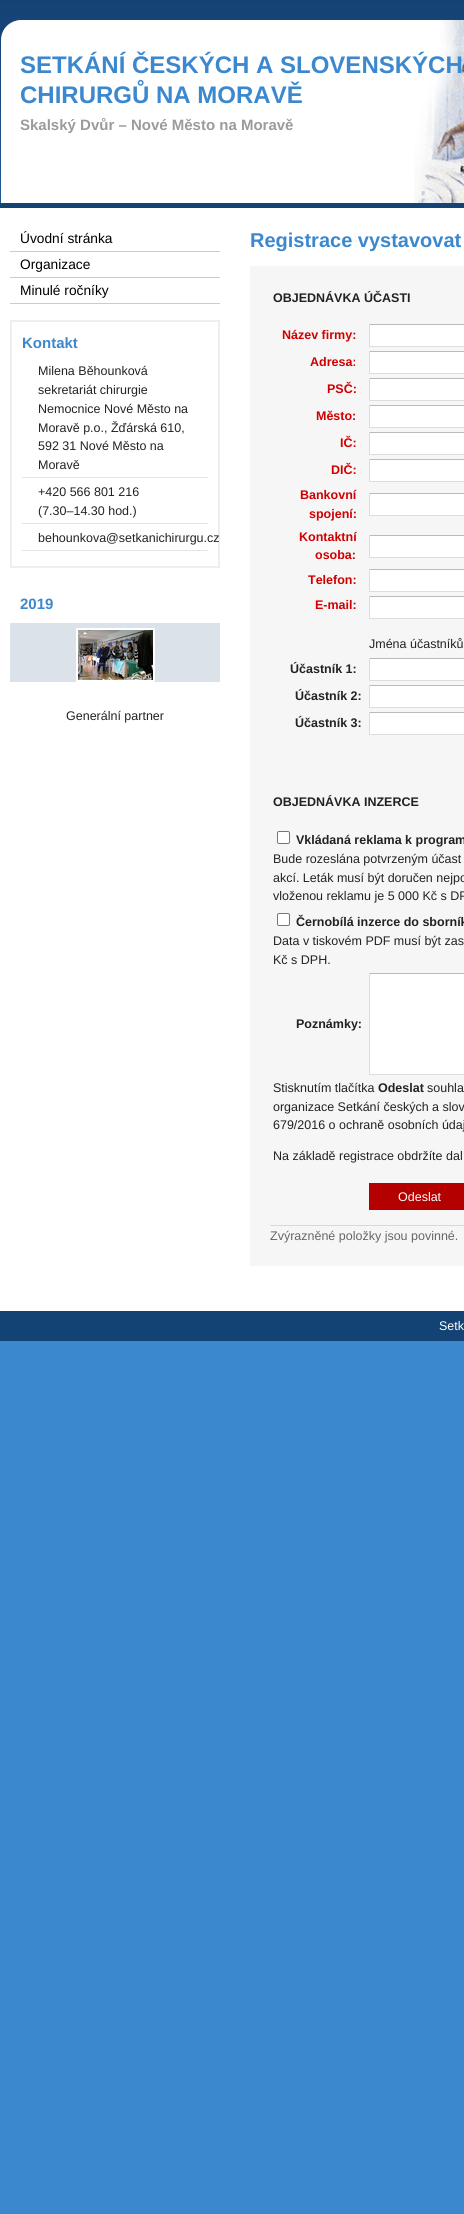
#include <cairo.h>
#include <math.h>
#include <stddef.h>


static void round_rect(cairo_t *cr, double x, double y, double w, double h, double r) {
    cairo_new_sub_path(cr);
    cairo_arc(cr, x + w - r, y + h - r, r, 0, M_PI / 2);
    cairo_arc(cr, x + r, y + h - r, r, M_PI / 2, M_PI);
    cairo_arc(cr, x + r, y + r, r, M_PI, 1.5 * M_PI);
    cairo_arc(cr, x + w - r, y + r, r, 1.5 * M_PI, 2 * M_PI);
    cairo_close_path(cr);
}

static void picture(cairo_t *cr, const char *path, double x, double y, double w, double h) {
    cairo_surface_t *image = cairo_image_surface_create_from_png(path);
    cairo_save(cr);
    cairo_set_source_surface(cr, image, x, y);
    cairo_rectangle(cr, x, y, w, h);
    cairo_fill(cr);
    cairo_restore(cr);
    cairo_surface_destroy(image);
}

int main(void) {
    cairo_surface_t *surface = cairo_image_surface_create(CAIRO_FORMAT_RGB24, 464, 2214);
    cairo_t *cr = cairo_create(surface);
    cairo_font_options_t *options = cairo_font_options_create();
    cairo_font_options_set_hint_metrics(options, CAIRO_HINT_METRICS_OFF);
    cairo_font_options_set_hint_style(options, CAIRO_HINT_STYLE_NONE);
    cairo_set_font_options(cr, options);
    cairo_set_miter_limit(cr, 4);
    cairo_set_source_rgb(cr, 0.235, 0.533, 0.812);
    cairo_paint(cr);
    picture(cr, "img1.png", 0, 0, 464, 20);
    cairo_set_source_rgb(cr, 0.082, 0.267, 0.471);
    cairo_rectangle(cr, 0, 203, 464, 1);
    cairo_fill(cr);
    picture(cr, "img2.png", 0, 20, 464, 183);
    cairo_set_source_rgb(cr, 0.078, 0.259, 0.459);
    cairo_rectangle(cr, 0, 204, 464, 4);
    cairo_fill(cr);
    cairo_select_font_face(cr, "Liberation Sans", CAIRO_FONT_SLANT_NORMAL, CAIRO_FONT_WEIGHT_BOLD);
    cairo_set_font_size(cr, 24);
    cairo_set_source_rgb(cr, 0.235, 0.533, 0.812);
    cairo_move_to(cr, 20, 73);
    cairo_show_text(cr, "SETKÁNÍ ČESKÝCH A SLOVENSKÝCH");
    cairo_move_to(cr, 20, 103);
    cairo_show_text(cr, "CHIRURGŮ NA MORAVĚ");
    cairo_set_font_size(cr, 15);
    cairo_set_source_rgb(cr, 0.608, 0.608, 0.608);
    cairo_move_to(cr, 20, 130);
    cairo_show_text(cr, "Skalský Dvůr – Nové Město na Moravě");
    cairo_set_source_rgb(cr, 1, 1, 1);
    cairo_rectangle(cr, 0, 208, 464, 1103);
    cairo_fill(cr);
    cairo_set_source_rgb(cr, 0.8, 0.8, 0.8);
    cairo_rectangle(cr, 10, 251, 210, 1);
    cairo_fill(cr);
    cairo_select_font_face(cr, "Liberation Sans", CAIRO_FONT_SLANT_NORMAL, CAIRO_FONT_WEIGHT_NORMAL);
    cairo_set_font_size(cr, 13.75);
    cairo_set_source_rgb(cr, 0, 0, 0);
    cairo_move_to(cr, 20, 243);
    cairo_show_text(cr, "Úvodní stránka");
    cairo_set_source_rgb(cr, 0.8, 0.8, 0.8);
    cairo_rectangle(cr, 10, 277, 210, 1);
    cairo_fill(cr);
    cairo_set_source_rgb(cr, 0, 0, 0);
    cairo_move_to(cr, 20, 269);
    cairo_show_text(cr, "Organizace");
    cairo_set_source_rgb(cr, 0.8, 0.8, 0.8);
    cairo_rectangle(cr, 10, 303, 210, 1);
    cairo_fill(cr);
    cairo_set_source_rgb(cr, 0, 0, 0);
    cairo_move_to(cr, 20, 295);
    cairo_show_text(cr, "Minulé ročníky");
    cairo_rectangle(cr, 11, 321, 208, 246);
    cairo_set_source_rgb(cr, 0.933, 0.933, 0.933);
    cairo_stroke(cr);
    cairo_select_font_face(cr, "Liberation Sans", CAIRO_FONT_SLANT_NORMAL, CAIRO_FONT_WEIGHT_BOLD);
    cairo_set_font_size(cr, 15);
    cairo_set_source_rgb(cr, 0.235, 0.533, 0.812);
    cairo_move_to(cr, 22, 348);
    cairo_show_text(cr, "Kontakt");
    cairo_set_source_rgb(cr, 0.894, 0.894, 0.894);
    cairo_rectangle(cr, 22, 477, 186, 1);
    cairo_fill(cr);
    cairo_select_font_face(cr, "Liberation Sans", CAIRO_FONT_SLANT_NORMAL, CAIRO_FONT_WEIGHT_NORMAL);
    cairo_set_font_size(cr, 12.5);
    cairo_set_source_rgb(cr, 0.133, 0.133, 0.133);
    cairo_move_to(cr, 38, 375);
    cairo_show_text(cr, "Milena Běhounková");
    cairo_move_to(cr, 38, 394);
    cairo_show_text(cr, "sekretariát chirurgie");
    cairo_move_to(cr, 38, 413);
    cairo_show_text(cr, "Nemocnice Nové Město na");
    cairo_move_to(cr, 38, 432);
    cairo_show_text(cr, "Moravě p.o., Žďárská 610,");
    cairo_move_to(cr, 38, 450);
    cairo_show_text(cr, "592 31 Nové Město na");
    cairo_move_to(cr, 38, 469);
    cairo_show_text(cr, "Moravě");
    cairo_set_source_rgb(cr, 0.894, 0.894, 0.894);
    cairo_rectangle(cr, 22, 523, 186, 1);
    cairo_fill(cr);
    cairo_set_source_rgb(cr, 0.133, 0.133, 0.133);
    cairo_move_to(cr, 38, 496);
    cairo_show_text(cr, "+420 566 801 216");
    cairo_move_to(cr, 38, 515);
    cairo_show_text(cr, "(7.30–14.30 hod.)");
    cairo_set_source_rgb(cr, 0.894, 0.894, 0.894);
    cairo_rectangle(cr, 22, 550, 186, 1);
    cairo_fill(cr);
    cairo_set_source_rgb(cr, 0.133, 0.133, 0.133);
    cairo_move_to(cr, 38, 542);
    cairo_show_text(cr, "behounkova@setkanichirurgu.cz");
    cairo_select_font_face(cr, "Liberation Sans", CAIRO_FONT_SLANT_NORMAL, CAIRO_FONT_WEIGHT_BOLD);
    cairo_set_font_size(cr, 15);
    cairo_set_source_rgb(cr, 0.235, 0.533, 0.812);
    cairo_move_to(cr, 20, 609);
    cairo_show_text(cr, "2019");
    cairo_set_source_rgb(cr, 0.859, 0.886, 0.914);
    cairo_rectangle(cr, 10, 623, 210, 59);
    cairo_fill(cr);
    cairo_rectangle(cr, 77, 629, 77, 52);
    cairo_set_source_rgb(cr, 1, 1, 1);
    cairo_stroke(cr);
    picture(cr, "img3.png", 78, 630, 75, 50);
    cairo_select_font_face(cr, "Liberation Sans", CAIRO_FONT_SLANT_NORMAL, CAIRO_FONT_WEIGHT_NORMAL);
    cairo_set_font_size(cr, 12.5);
    cairo_set_source_rgb(cr, 0.133, 0.133, 0.133);
    cairo_move_to(cr, 66, 720);
    cairo_show_text(cr, "Generální partner");
    cairo_select_font_face(cr, "Liberation Sans", CAIRO_FONT_SLANT_NORMAL, CAIRO_FONT_WEIGHT_BOLD);
    cairo_set_font_size(cr, 20);
    cairo_set_source_rgb(cr, 0.235, 0.533, 0.812);
    cairo_move_to(cr, 250, 247);
    cairo_show_text(cr, "Registrace vystavovat");
    cairo_set_source_rgb(cr, 0.961, 0.961, 0.961);
    cairo_rectangle(cr, 250, 266, 214, 1000);
    cairo_fill(cr);
    cairo_set_font_size(cr, 12.5);
    cairo_set_source_rgb(cr, 0.133, 0.133, 0.133);
    cairo_move_to(cr, 273, 302);
    cairo_show_text(cr, "OBJEDNÁVKA ÚČASTI");
    cairo_set_source_rgb(cr, 0.816, 0, 0);
    cairo_move_to(cr, 282, 339);
    cairo_show_text(cr, "Název firmy:");
    cairo_set_source_rgb(cr, 1, 1, 1);
    cairo_rectangle(cr, 370, 325, 94, 21);
    cairo_fill(cr);
    cairo_set_source_rgb(cr, 0.733, 0.733, 0.733);
    cairo_rectangle(cr, 369, 324, 95, 1);
    cairo_fill(cr);
    cairo_set_source_rgb(cr, 0.867, 0.867, 0.867);
    cairo_rectangle(cr, 369, 346, 95, 1);
    cairo_fill(cr);
    cairo_rectangle(cr, 369, 324, 1, 23);
    cairo_fill(cr);
    cairo_set_source_rgb(cr, 0.816, 0, 0);
    cairo_move_to(cr, 310, 366);
    cairo_show_text(cr, "Adresa:");
    cairo_set_source_rgb(cr, 1, 1, 1);
    cairo_rectangle(cr, 370, 352, 94, 21);
    cairo_fill(cr);
    cairo_set_source_rgb(cr, 0.733, 0.733, 0.733);
    cairo_rectangle(cr, 369, 351, 95, 1);
    cairo_fill(cr);
    cairo_set_source_rgb(cr, 0.867, 0.867, 0.867);
    cairo_rectangle(cr, 369, 373, 95, 1);
    cairo_fill(cr);
    cairo_rectangle(cr, 369, 351, 1, 23);
    cairo_fill(cr);
    cairo_set_source_rgb(cr, 0.816, 0, 0);
    cairo_move_to(cr, 327, 393);
    cairo_show_text(cr, "PSČ:");
    cairo_set_source_rgb(cr, 1, 1, 1);
    cairo_rectangle(cr, 370, 379, 94, 21);
    cairo_fill(cr);
    cairo_set_source_rgb(cr, 0.733, 0.733, 0.733);
    cairo_rectangle(cr, 369, 378, 95, 1);
    cairo_fill(cr);
    cairo_set_source_rgb(cr, 0.867, 0.867, 0.867);
    cairo_rectangle(cr, 369, 400, 95, 1);
    cairo_fill(cr);
    cairo_rectangle(cr, 369, 378, 1, 23);
    cairo_fill(cr);
    cairo_set_source_rgb(cr, 0.816, 0, 0);
    cairo_move_to(cr, 316, 420);
    cairo_show_text(cr, "Město:");
    cairo_set_source_rgb(cr, 1, 1, 1);
    cairo_rectangle(cr, 370, 406, 94, 21);
    cairo_fill(cr);
    cairo_set_source_rgb(cr, 0.733, 0.733, 0.733);
    cairo_rectangle(cr, 369, 405, 95, 1);
    cairo_fill(cr);
    cairo_set_source_rgb(cr, 0.867, 0.867, 0.867);
    cairo_rectangle(cr, 369, 427, 95, 1);
    cairo_fill(cr);
    cairo_rectangle(cr, 369, 405, 1, 23);
    cairo_fill(cr);
    cairo_set_source_rgb(cr, 0.816, 0, 0);
    cairo_move_to(cr, 340, 447);
    cairo_show_text(cr, "IČ:");
    cairo_set_source_rgb(cr, 1, 1, 1);
    cairo_rectangle(cr, 370, 433, 94, 21);
    cairo_fill(cr);
    cairo_set_source_rgb(cr, 0.733, 0.733, 0.733);
    cairo_rectangle(cr, 369, 432, 95, 1);
    cairo_fill(cr);
    cairo_set_source_rgb(cr, 0.867, 0.867, 0.867);
    cairo_rectangle(cr, 369, 454, 95, 1);
    cairo_fill(cr);
    cairo_rectangle(cr, 369, 432, 1, 23);
    cairo_fill(cr);
    cairo_set_source_rgb(cr, 0.816, 0, 0);
    cairo_move_to(cr, 331, 474);
    cairo_show_text(cr, "DIČ:");
    cairo_set_source_rgb(cr, 1, 1, 1);
    cairo_rectangle(cr, 370, 460, 94, 21);
    cairo_fill(cr);
    cairo_set_source_rgb(cr, 0.733, 0.733, 0.733);
    cairo_rectangle(cr, 369, 459, 95, 1);
    cairo_fill(cr);
    cairo_set_source_rgb(cr, 0.867, 0.867, 0.867);
    cairo_rectangle(cr, 369, 481, 95, 1);
    cairo_fill(cr);
    cairo_rectangle(cr, 369, 459, 1, 23);
    cairo_fill(cr);
    cairo_set_source_rgb(cr, 0.816, 0, 0);
    cairo_move_to(cr, 300, 499);
    cairo_show_text(cr, "Bankovní");
    cairo_move_to(cr, 309, 518);
    cairo_show_text(cr, "spojení:");
    cairo_set_source_rgb(cr, 1, 1, 1);
    cairo_rectangle(cr, 370, 494, 94, 21);
    cairo_fill(cr);
    cairo_set_source_rgb(cr, 0.733, 0.733, 0.733);
    cairo_rectangle(cr, 369, 493, 95, 1);
    cairo_fill(cr);
    cairo_set_source_rgb(cr, 0.867, 0.867, 0.867);
    cairo_rectangle(cr, 369, 515, 95, 1);
    cairo_fill(cr);
    cairo_rectangle(cr, 369, 493, 1, 23);
    cairo_fill(cr);
    cairo_set_source_rgb(cr, 0.816, 0, 0);
    cairo_move_to(cr, 299, 541);
    cairo_show_text(cr, "Kontaktní");
    cairo_move_to(cr, 315, 559);
    cairo_show_text(cr, "osoba:");
    cairo_set_source_rgb(cr, 1, 1, 1);
    cairo_rectangle(cr, 370, 536, 94, 21);
    cairo_fill(cr);
    cairo_set_source_rgb(cr, 0.733, 0.733, 0.733);
    cairo_rectangle(cr, 369, 535, 95, 1);
    cairo_fill(cr);
    cairo_set_source_rgb(cr, 0.867, 0.867, 0.867);
    cairo_rectangle(cr, 369, 557, 95, 1);
    cairo_fill(cr);
    cairo_rectangle(cr, 369, 535, 1, 23);
    cairo_fill(cr);
    cairo_set_source_rgb(cr, 0.816, 0, 0);
    cairo_move_to(cr, 308, 584);
    cairo_show_text(cr, "Telefon:");
    cairo_set_source_rgb(cr, 1, 1, 1);
    cairo_rectangle(cr, 370, 570, 94, 21);
    cairo_fill(cr);
    cairo_set_source_rgb(cr, 0.733, 0.733, 0.733);
    cairo_rectangle(cr, 369, 569, 95, 1);
    cairo_fill(cr);
    cairo_set_source_rgb(cr, 0.867, 0.867, 0.867);
    cairo_rectangle(cr, 369, 591, 95, 1);
    cairo_fill(cr);
    cairo_rectangle(cr, 369, 569, 1, 23);
    cairo_fill(cr);
    cairo_set_source_rgb(cr, 0.816, 0, 0);
    cairo_move_to(cr, 315, 609);
    cairo_show_text(cr, "E-mail:");
    cairo_set_source_rgb(cr, 1, 1, 1);
    cairo_rectangle(cr, 370, 597, 94, 21);
    cairo_fill(cr);
    cairo_set_source_rgb(cr, 0.733, 0.733, 0.733);
    cairo_rectangle(cr, 369, 596, 95, 1);
    cairo_fill(cr);
    cairo_set_source_rgb(cr, 0.867, 0.867, 0.867);
    cairo_rectangle(cr, 369, 618, 95, 1);
    cairo_fill(cr);
    cairo_rectangle(cr, 369, 596, 1, 23);
    cairo_fill(cr);
    cairo_select_font_face(cr, "Liberation Sans", CAIRO_FONT_SLANT_NORMAL, CAIRO_FONT_WEIGHT_NORMAL);
    cairo_set_source_rgb(cr, 0.133, 0.133, 0.133);
    cairo_move_to(cr, 369, 648);
    cairo_show_text(cr, "Jména účastníků");
    cairo_select_font_face(cr, "Liberation Sans", CAIRO_FONT_SLANT_NORMAL, CAIRO_FONT_WEIGHT_BOLD);
    cairo_move_to(cr, 290, 673);
    cairo_show_text(cr, "Účastník 1:");
    cairo_set_source_rgb(cr, 1, 1, 1);
    cairo_rectangle(cr, 370, 659, 94, 21);
    cairo_fill(cr);
    cairo_set_source_rgb(cr, 0.733, 0.733, 0.733);
    cairo_rectangle(cr, 369, 658, 95, 1);
    cairo_fill(cr);
    cairo_set_source_rgb(cr, 0.867, 0.867, 0.867);
    cairo_rectangle(cr, 369, 680, 95, 1);
    cairo_fill(cr);
    cairo_rectangle(cr, 369, 658, 1, 23);
    cairo_fill(cr);
    cairo_set_source_rgb(cr, 0.133, 0.133, 0.133);
    cairo_move_to(cr, 295, 700);
    cairo_show_text(cr, "Účastník 2:");
    cairo_set_source_rgb(cr, 1, 1, 1);
    cairo_rectangle(cr, 370, 686, 94, 21);
    cairo_fill(cr);
    cairo_set_source_rgb(cr, 0.733, 0.733, 0.733);
    cairo_rectangle(cr, 369, 685, 95, 1);
    cairo_fill(cr);
    cairo_set_source_rgb(cr, 0.867, 0.867, 0.867);
    cairo_rectangle(cr, 369, 707, 95, 1);
    cairo_fill(cr);
    cairo_rectangle(cr, 369, 685, 1, 23);
    cairo_fill(cr);
    cairo_set_source_rgb(cr, 0.133, 0.133, 0.133);
    cairo_move_to(cr, 295, 727);
    cairo_show_text(cr, "Účastník 3:");
    cairo_set_source_rgb(cr, 1, 1, 1);
    cairo_rectangle(cr, 370, 713, 94, 21);
    cairo_fill(cr);
    cairo_set_source_rgb(cr, 0.733, 0.733, 0.733);
    cairo_rectangle(cr, 369, 712, 95, 1);
    cairo_fill(cr);
    cairo_set_source_rgb(cr, 0.867, 0.867, 0.867);
    cairo_rectangle(cr, 369, 734, 95, 1);
    cairo_fill(cr);
    cairo_rectangle(cr, 369, 712, 1, 23);
    cairo_fill(cr);
    cairo_set_source_rgb(cr, 0.133, 0.133, 0.133);
    cairo_move_to(cr, 273, 806);
    cairo_show_text(cr, "OBJEDNÁVKA INZERCE");
    cairo_set_source_rgb(cr, 1, 1, 1);
    round_rect(cr, 277.5, 831.5, 12, 12, 1.5);
    cairo_fill_preserve(cr);
    cairo_set_source_rgb(cr, 0.463, 0.463, 0.463);
    cairo_set_line_width(cr, 1);
    cairo_stroke(cr);
    cairo_set_source_rgb(cr, 0.133, 0.133, 0.133);
    cairo_move_to(cr, 296, 844);
    cairo_show_text(cr, "Vkládaná reklama k program");
    cairo_select_font_face(cr, "Liberation Sans", CAIRO_FONT_SLANT_NORMAL, CAIRO_FONT_WEIGHT_NORMAL);
    cairo_move_to(cr, 273, 863);
    cairo_show_text(cr, "Bude rozeslána potvrzeným účast");
    cairo_move_to(cr, 273, 882);
    cairo_show_text(cr, "akcí. Leták musí být doručen nejpo");
    cairo_move_to(cr, 273, 900);
    cairo_show_text(cr, "vloženou reklamu je 5 000 Kč s DP");
    cairo_set_source_rgb(cr, 1, 1, 1);
    round_rect(cr, 277.5, 913.5, 12, 12, 1.5);
    cairo_fill_preserve(cr);
    cairo_set_source_rgb(cr, 0.463, 0.463, 0.463);
    cairo_stroke(cr);
    cairo_select_font_face(cr, "Liberation Sans", CAIRO_FONT_SLANT_NORMAL, CAIRO_FONT_WEIGHT_BOLD);
    cairo_set_source_rgb(cr, 0.133, 0.133, 0.133);
    cairo_move_to(cr, 296, 926);
    cairo_show_text(cr, "Černobílá inzerce do sborník");
    cairo_select_font_face(cr, "Liberation Sans", CAIRO_FONT_SLANT_NORMAL, CAIRO_FONT_WEIGHT_NORMAL);
    cairo_move_to(cr, 273, 945);
    cairo_show_text(cr, "Data v tiskovém PDF musí být zas");
    cairo_move_to(cr, 273, 964);
    cairo_show_text(cr, "Kč s DPH.");
    cairo_select_font_face(cr, "Liberation Sans", CAIRO_FONT_SLANT_NORMAL, CAIRO_FONT_WEIGHT_BOLD);
    cairo_move_to(cr, 296, 1028);
    cairo_show_text(cr, "Poznámky:");
    cairo_set_source_rgb(cr, 1, 1, 1);
    cairo_rectangle(cr, 370, 974, 94, 100);
    cairo_fill(cr);
    cairo_set_source_rgb(cr, 0.733, 0.733, 0.733);
    cairo_rectangle(cr, 369, 973, 95, 1);
    cairo_fill(cr);
    cairo_set_source_rgb(cr, 0.867, 0.867, 0.867);
    cairo_rectangle(cr, 369, 1074, 95, 1);
    cairo_fill(cr);
    cairo_rectangle(cr, 369, 973, 1, 102);
    cairo_fill(cr);
    cairo_select_font_face(cr, "Liberation Sans", CAIRO_FONT_SLANT_NORMAL, CAIRO_FONT_WEIGHT_NORMAL);
    cairo_set_source_rgb(cr, 0.133, 0.133, 0.133);
    cairo_move_to(cr, 273, 1092);
    cairo_show_text(cr, "Stisknutím tlačítka");
    cairo_select_font_face(cr, "Liberation Sans", CAIRO_FONT_SLANT_NORMAL, CAIRO_FONT_WEIGHT_BOLD);
    cairo_move_to(cr, 378, 1092);
    cairo_show_text(cr, "Odeslat");
    cairo_select_font_face(cr, "Liberation Sans", CAIRO_FONT_SLANT_NORMAL, CAIRO_FONT_WEIGHT_NORMAL);
    cairo_move_to(cr, 427, 1092);
    cairo_show_text(cr, "souhla");
    cairo_move_to(cr, 273, 1111);
    cairo_show_text(cr, "organizace Setkání českých a slov");
    cairo_move_to(cr, 273, 1129);
    cairo_show_text(cr, "679/2016 o ochraně osobních údaj");
    cairo_move_to(cr, 273, 1160);
    cairo_show_text(cr, "Na základě registrace obdržíte dal");
    cairo_set_source_rgb(cr, 0.71, 0, 0);
    cairo_rectangle(cr, 369, 1183, 95, 27);
    cairo_fill(cr);
    cairo_set_source_rgb(cr, 1, 1, 1);
    cairo_move_to(cr, 398, 1201);
    cairo_show_text(cr, "Odeslat");
    cairo_set_source_rgb(cr, 0.847, 0.847, 0.847);
    cairo_rectangle(cr, 270, 1225, 194, 1);
    cairo_fill(cr);
    cairo_set_source_rgb(cr, 0.4, 0.4, 0.4);
    cairo_move_to(cr, 270, 1240);
    cairo_show_text(cr, "Zvýrazněné položky jsou povinné.");
    cairo_set_source_rgb(cr, 0.078, 0.259, 0.459);
    cairo_rectangle(cr, 0, 1311, 464, 30);
    cairo_fill(cr);
    cairo_set_source_rgb(cr, 1, 1, 1);
    cairo_move_to(cr, 439, 1330);
    cairo_show_text(cr, "Setk");
    cairo_surface_write_to_png(surface, "page.png");
    cairo_font_options_destroy(options);
    cairo_destroy(cr);
    cairo_surface_destroy(surface);
    return 0;
}
